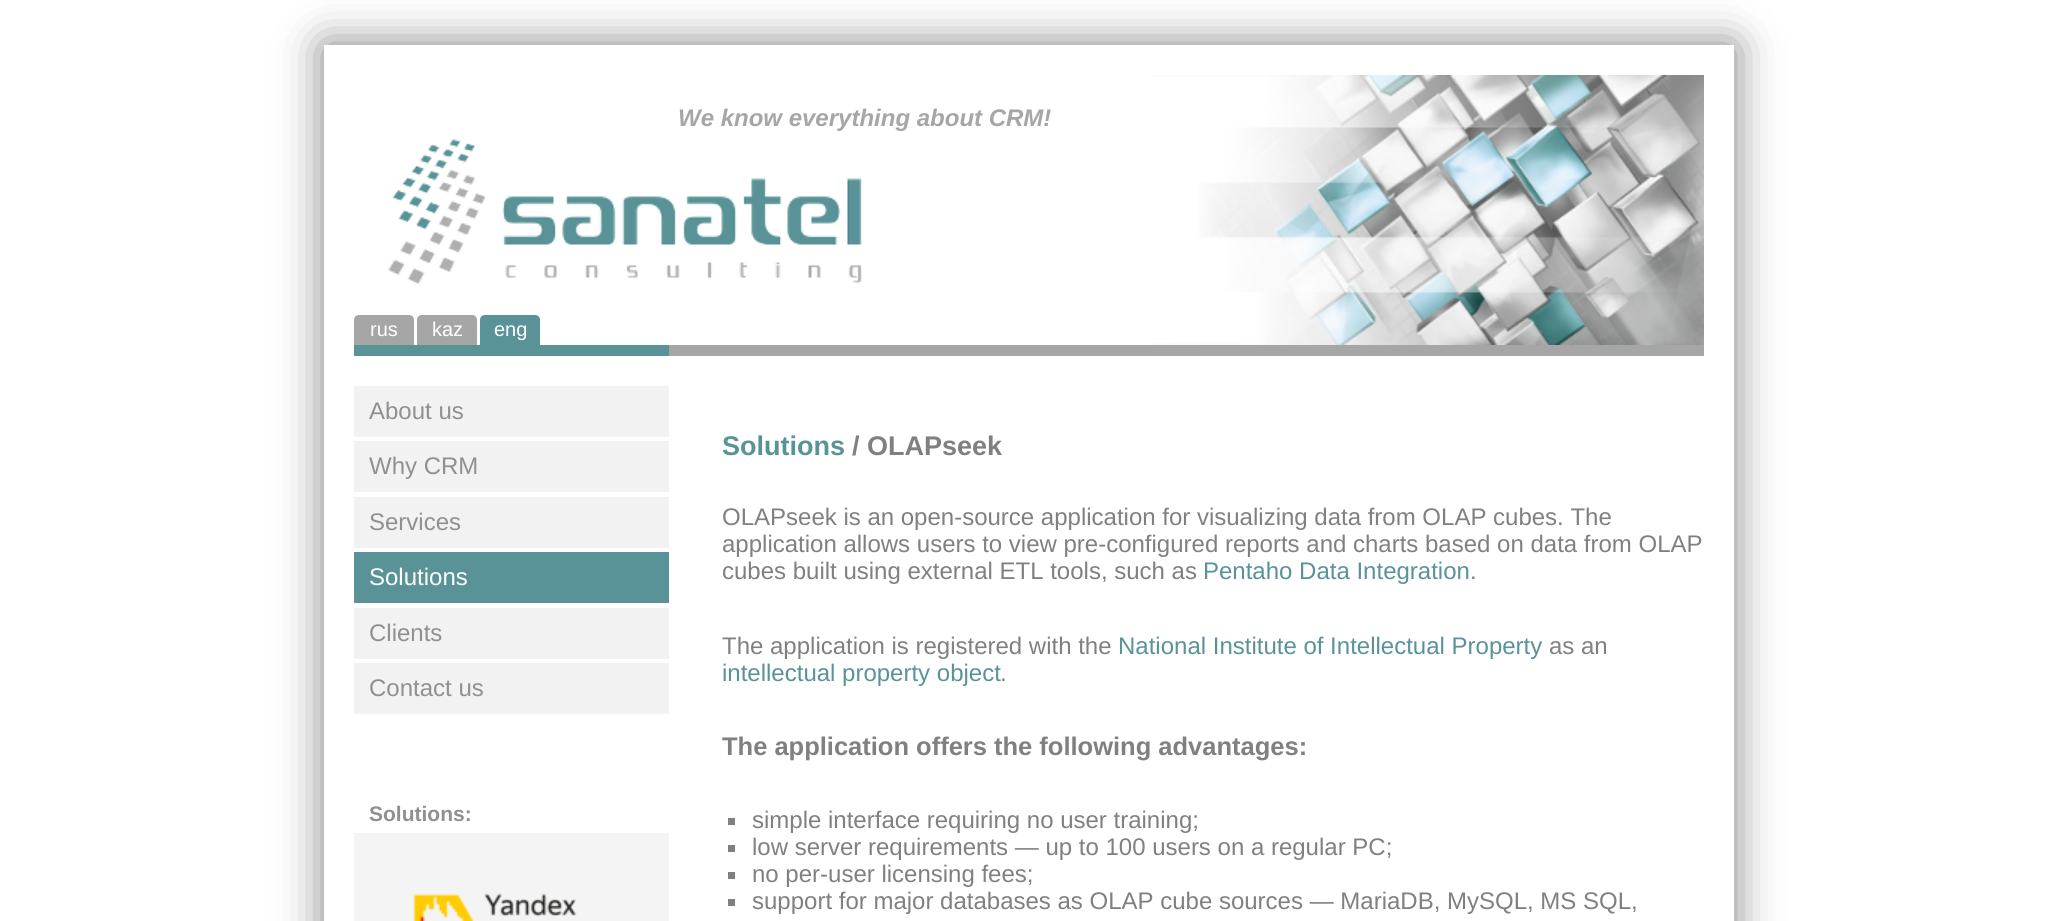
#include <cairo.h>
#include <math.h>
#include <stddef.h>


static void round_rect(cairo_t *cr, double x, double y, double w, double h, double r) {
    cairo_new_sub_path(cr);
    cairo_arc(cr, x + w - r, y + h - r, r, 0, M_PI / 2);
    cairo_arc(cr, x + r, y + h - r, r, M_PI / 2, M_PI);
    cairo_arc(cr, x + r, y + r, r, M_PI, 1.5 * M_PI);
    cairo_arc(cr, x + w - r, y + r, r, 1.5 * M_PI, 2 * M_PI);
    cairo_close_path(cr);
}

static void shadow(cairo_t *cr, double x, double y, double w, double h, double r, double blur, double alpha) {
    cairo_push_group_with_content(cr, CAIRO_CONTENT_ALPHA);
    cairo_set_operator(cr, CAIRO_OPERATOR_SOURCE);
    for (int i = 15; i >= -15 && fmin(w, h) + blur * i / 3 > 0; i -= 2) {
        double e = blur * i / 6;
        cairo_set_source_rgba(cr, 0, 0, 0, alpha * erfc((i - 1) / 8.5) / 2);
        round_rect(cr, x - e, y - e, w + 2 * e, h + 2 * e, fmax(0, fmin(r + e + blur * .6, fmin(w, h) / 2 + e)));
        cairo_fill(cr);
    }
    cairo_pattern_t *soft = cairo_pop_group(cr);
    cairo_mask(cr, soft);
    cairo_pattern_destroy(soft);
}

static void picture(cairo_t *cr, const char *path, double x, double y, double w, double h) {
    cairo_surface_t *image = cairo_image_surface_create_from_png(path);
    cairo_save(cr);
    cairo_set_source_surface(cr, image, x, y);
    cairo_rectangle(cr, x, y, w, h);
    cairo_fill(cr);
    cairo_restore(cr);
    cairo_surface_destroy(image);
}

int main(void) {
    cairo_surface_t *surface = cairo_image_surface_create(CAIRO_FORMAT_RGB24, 2058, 921);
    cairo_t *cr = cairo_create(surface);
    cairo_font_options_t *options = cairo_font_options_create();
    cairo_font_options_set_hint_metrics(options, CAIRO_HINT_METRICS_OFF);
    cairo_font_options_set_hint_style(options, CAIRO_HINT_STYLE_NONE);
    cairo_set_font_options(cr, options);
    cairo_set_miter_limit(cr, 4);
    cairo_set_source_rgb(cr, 1, 1, 1);
    cairo_paint(cr);
    cairo_save(cr);
    cairo_set_fill_rule(cr, CAIRO_FILL_RULE_EVEN_ODD);
    cairo_new_path(cr);
    cairo_move_to(cr, 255, 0);
    cairo_line_to(cr, 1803, 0);
    cairo_line_to(cr, 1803, 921);
    cairo_line_to(cr, 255, 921);
    cairo_close_path(cr);
    cairo_move_to(cr, 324, 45);
    cairo_line_to(cr, 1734, 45);
    cairo_line_to(cr, 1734, 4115);
    cairo_line_to(cr, 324, 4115);
    cairo_close_path(cr);
    cairo_clip(cr);
    cairo_set_source_rgb(cr, 0.502, 0.502, 0.502);
    shadow(cr, 324, 45, 1410, 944, 0, 22.5, 1);
    cairo_restore(cr);
    cairo_select_font_face(cr, "Liberation Sans", CAIRO_FONT_SLANT_ITALIC, CAIRO_FONT_WEIGHT_BOLD);
    cairo_set_font_size(cr, 24);
    cairo_set_source_rgb(cr, 0.651, 0.651, 0.651);
    cairo_move_to(cr, 678, 126);
    cairo_show_text(cr, "We know everything about CRM!");
    picture(cr, "img1.png", 388, 139, 474, 145);
    cairo_new_path(cr);
    cairo_move_to(cr, 359, 315);
    cairo_line_to(cr, 409, 315);
    cairo_curve_to(cr, 412, 315, 414, 317, 414, 320);
    cairo_line_to(cr, 414, 345);
    cairo_line_to(cr, 354, 345);
    cairo_line_to(cr, 354, 320);
    cairo_curve_to(cr, 354, 317, 356, 315, 359, 315);
    cairo_close_path(cr);
    cairo_fill(cr);
    cairo_select_font_face(cr, "Liberation Sans", CAIRO_FONT_SLANT_NORMAL, CAIRO_FONT_WEIGHT_NORMAL);
    cairo_set_font_size(cr, 20);
    cairo_set_source_rgb(cr, 1, 1, 1);
    cairo_move_to(cr, 370, 336);
    cairo_show_text(cr, "rus");
    cairo_set_source_rgb(cr, 0.651, 0.651, 0.651);
    cairo_new_path(cr);
    cairo_move_to(cr, 422, 315);
    cairo_line_to(cr, 472, 315);
    cairo_curve_to(cr, 475, 315, 477, 317, 477, 320);
    cairo_line_to(cr, 477, 345);
    cairo_line_to(cr, 417, 345);
    cairo_line_to(cr, 417, 320);
    cairo_curve_to(cr, 417, 317, 419, 315, 422, 315);
    cairo_close_path(cr);
    cairo_fill(cr);
    cairo_set_source_rgb(cr, 1, 1, 1);
    cairo_move_to(cr, 432, 336);
    cairo_show_text(cr, "kaz");
    cairo_set_source_rgb(cr, 0.349, 0.576, 0.592);
    cairo_new_path(cr);
    cairo_move_to(cr, 485, 315);
    cairo_line_to(cr, 535, 315);
    cairo_curve_to(cr, 538, 315, 540, 317, 540, 320);
    cairo_line_to(cr, 540, 345);
    cairo_line_to(cr, 480, 345);
    cairo_line_to(cr, 480, 320);
    cairo_curve_to(cr, 480, 317, 482, 315, 485, 315);
    cairo_close_path(cr);
    cairo_fill(cr);
    cairo_set_source_rgb(cr, 1, 1, 1);
    cairo_move_to(cr, 494, 336);
    cairo_show_text(cr, "eng");
    picture(cr, "img2.png", 1153, 75, 551, 270);
    cairo_set_source_rgb(cr, 0.349, 0.576, 0.592);
    cairo_rectangle(cr, 354, 345, 315, 11);
    cairo_fill(cr);
    cairo_set_source_rgb(cr, 0.651, 0.651, 0.651);
    cairo_rectangle(cr, 669, 345, 1035, 11);
    cairo_fill(cr);
    cairo_set_source_rgb(cr, 0.949, 0.949, 0.949);
    cairo_rectangle(cr, 354, 386, 315, 51);
    cairo_fill(cr);
    cairo_set_font_size(cr, 24);
    cairo_set_source_rgb(cr, 0.565, 0.565, 0.565);
    cairo_move_to(cr, 369, 419);
    cairo_show_text(cr, "About us");
    cairo_set_source_rgb(cr, 0.949, 0.949, 0.949);
    cairo_rectangle(cr, 354, 441, 315, 51);
    cairo_fill(cr);
    cairo_set_source_rgb(cr, 0.565, 0.565, 0.565);
    cairo_move_to(cr, 369, 474);
    cairo_show_text(cr, "Why CRM");
    cairo_set_source_rgb(cr, 0.949, 0.949, 0.949);
    cairo_rectangle(cr, 354, 497, 315, 51);
    cairo_fill(cr);
    cairo_set_source_rgb(cr, 0.565, 0.565, 0.565);
    cairo_move_to(cr, 369, 530);
    cairo_show_text(cr, "Services");
    cairo_set_source_rgb(cr, 0.349, 0.576, 0.592);
    cairo_rectangle(cr, 354, 552, 315, 51);
    cairo_fill(cr);
    cairo_set_source_rgb(cr, 1, 1, 1);
    cairo_move_to(cr, 369, 585);
    cairo_show_text(cr, "Solutions");
    cairo_set_source_rgb(cr, 0.949, 0.949, 0.949);
    cairo_rectangle(cr, 354, 608, 315, 51);
    cairo_fill(cr);
    cairo_set_source_rgb(cr, 0.565, 0.565, 0.565);
    cairo_move_to(cr, 369, 641);
    cairo_show_text(cr, "Clients");
    cairo_set_source_rgb(cr, 0.949, 0.949, 0.949);
    cairo_rectangle(cr, 354, 663, 315, 51);
    cairo_fill(cr);
    cairo_set_source_rgb(cr, 0.565, 0.565, 0.565);
    cairo_move_to(cr, 369, 696);
    cairo_show_text(cr, "Contact us");
    cairo_select_font_face(cr, "Liberation Sans", CAIRO_FONT_SLANT_NORMAL, CAIRO_FONT_WEIGHT_BOLD);
    cairo_set_font_size(cr, 21);
    cairo_move_to(cr, 369, 821);
    cairo_show_text(cr, "Solutions:");
    cairo_set_source_rgb(cr, 0.957, 0.957, 0.957);
    cairo_rectangle(cr, 354, 833, 315, 88);
    cairo_fill(cr);
    picture(cr, "img3.png", 413, 893, 164, 28);
    cairo_set_font_size(cr, 27);
    cairo_set_source_rgb(cr, 0.349, 0.576, 0.592);
    cairo_move_to(cr, 722, 455);
    cairo_show_text(cr, "Solutions");
    cairo_set_source_rgb(cr, 0.502, 0.502, 0.502);
    cairo_move_to(cr, 852, 455);
    cairo_show_text(cr, "/ OLAPseek");
    cairo_select_font_face(cr, "Liberation Sans", CAIRO_FONT_SLANT_NORMAL, CAIRO_FONT_WEIGHT_NORMAL);
    cairo_set_font_size(cr, 24);
    cairo_move_to(cr, 722, 525);
    cairo_show_text(cr, "OLAPseek is an open-source application for visualizing data from OLAP cubes. The");
    cairo_move_to(cr, 722, 552);
    cairo_show_text(cr, "application allows users to view pre-configured reports and charts based on data from OLAP");
    cairo_move_to(cr, 722, 579);
    cairo_show_text(cr, "cubes built using external ETL tools, such as");
    cairo_set_source_rgb(cr, 0.349, 0.576, 0.592);
    cairo_move_to(cr, 1203, 579);
    cairo_show_text(cr, "Pentaho Data Integration");
    cairo_set_source_rgb(cr, 0.502, 0.502, 0.502);
    cairo_move_to(cr, 1470, 579);
    cairo_show_text(cr, ".");
    cairo_move_to(cr, 722, 654);
    cairo_show_text(cr, "The application is registered with the");
    cairo_set_source_rgb(cr, 0.349, 0.576, 0.592);
    cairo_move_to(cr, 1118, 654);
    cairo_show_text(cr, "National Institute of Intellectual Property");
    cairo_set_source_rgb(cr, 0.502, 0.502, 0.502);
    cairo_move_to(cr, 1549, 654);
    cairo_show_text(cr, "as an");
    cairo_set_source_rgb(cr, 0.349, 0.576, 0.592);
    cairo_move_to(cr, 722, 681);
    cairo_show_text(cr, "intellectual property object");
    cairo_set_source_rgb(cr, 0.502, 0.502, 0.502);
    cairo_move_to(cr, 1000, 681);
    cairo_show_text(cr, ".");
    cairo_select_font_face(cr, "Liberation Sans", CAIRO_FONT_SLANT_NORMAL, CAIRO_FONT_WEIGHT_BOLD);
    cairo_set_font_size(cr, 25.5);
    cairo_move_to(cr, 722, 755);
    cairo_show_text(cr, "The application offers the following advantages:");
    cairo_rectangle(cr, 728, 818, 7, 7);
    cairo_fill(cr);
    cairo_select_font_face(cr, "Liberation Sans", CAIRO_FONT_SLANT_NORMAL, CAIRO_FONT_WEIGHT_NORMAL);
    cairo_set_font_size(cr, 24);
    cairo_move_to(cr, 752, 828);
    cairo_show_text(cr, "simple interface requiring no user training;");
    cairo_rectangle(cr, 728, 845, 7, 7);
    cairo_fill(cr);
    cairo_move_to(cr, 752, 855);
    cairo_show_text(cr, "low server requirements — up to 100 users on a regular PC;");
    cairo_rectangle(cr, 728, 872, 7, 7);
    cairo_fill(cr);
    cairo_move_to(cr, 752, 882);
    cairo_show_text(cr, "no per-user licensing fees;");
    cairo_rectangle(cr, 728, 899, 7, 7);
    cairo_fill(cr);
    cairo_move_to(cr, 752, 909);
    cairo_show_text(cr, "support for major databases as OLAP cube sources — MariaDB, MySQL, MS SQL,");
    cairo_surface_write_to_png(surface, "page.png");
    cairo_font_options_destroy(options);
    cairo_destroy(cr);
    cairo_surface_destroy(surface);
    return 0;
}
